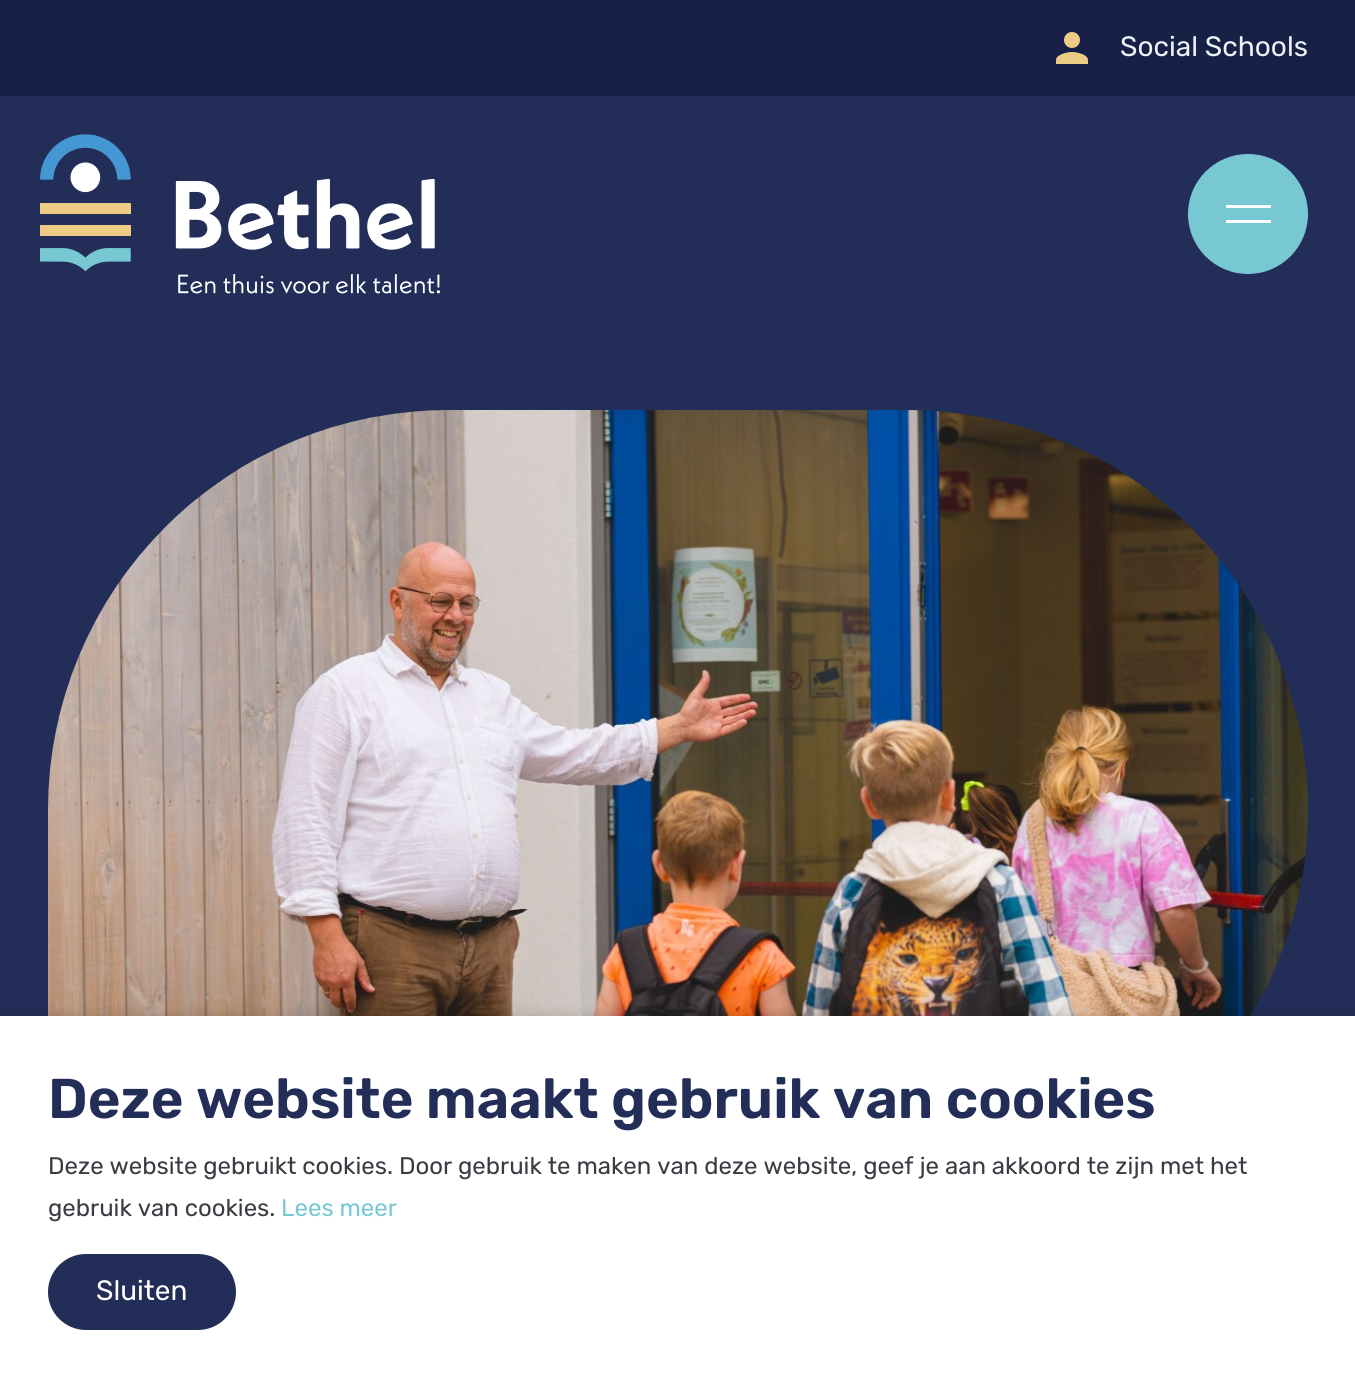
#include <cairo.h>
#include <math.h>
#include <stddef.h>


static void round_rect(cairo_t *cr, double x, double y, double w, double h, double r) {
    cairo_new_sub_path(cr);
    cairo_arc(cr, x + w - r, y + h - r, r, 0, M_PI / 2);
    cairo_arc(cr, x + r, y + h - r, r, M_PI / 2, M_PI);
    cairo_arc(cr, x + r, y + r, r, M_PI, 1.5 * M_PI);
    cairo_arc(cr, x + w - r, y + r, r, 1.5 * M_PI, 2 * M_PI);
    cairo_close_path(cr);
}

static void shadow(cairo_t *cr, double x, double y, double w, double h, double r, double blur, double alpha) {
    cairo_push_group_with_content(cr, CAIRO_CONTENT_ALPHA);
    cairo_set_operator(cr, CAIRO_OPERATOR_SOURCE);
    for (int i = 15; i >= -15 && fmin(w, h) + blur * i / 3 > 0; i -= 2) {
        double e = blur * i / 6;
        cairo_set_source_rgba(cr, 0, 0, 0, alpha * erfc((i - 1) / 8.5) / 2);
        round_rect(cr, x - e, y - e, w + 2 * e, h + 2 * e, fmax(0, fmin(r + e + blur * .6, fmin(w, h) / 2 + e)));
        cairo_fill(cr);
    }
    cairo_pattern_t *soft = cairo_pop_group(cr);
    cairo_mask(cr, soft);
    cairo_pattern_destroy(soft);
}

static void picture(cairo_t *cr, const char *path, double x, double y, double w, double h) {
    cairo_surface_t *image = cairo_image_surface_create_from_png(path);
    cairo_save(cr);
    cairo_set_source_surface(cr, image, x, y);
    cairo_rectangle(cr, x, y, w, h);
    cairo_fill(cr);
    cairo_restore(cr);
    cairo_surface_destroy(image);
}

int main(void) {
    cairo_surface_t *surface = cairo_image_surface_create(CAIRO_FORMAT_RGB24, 1355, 1378);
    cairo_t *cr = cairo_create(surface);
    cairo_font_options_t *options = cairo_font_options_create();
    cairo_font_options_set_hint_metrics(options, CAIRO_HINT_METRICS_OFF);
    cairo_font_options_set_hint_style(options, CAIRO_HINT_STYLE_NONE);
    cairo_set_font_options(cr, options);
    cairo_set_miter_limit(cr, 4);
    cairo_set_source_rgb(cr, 0.09, 0.125, 0.271);
    cairo_paint(cr);
    picture(cr, "img1.png", 1056, 32, 32, 32);
    cairo_select_font_face(cr, "Rubik Light", CAIRO_FONT_SLANT_NORMAL, CAIRO_FONT_WEIGHT_NORMAL);
    cairo_set_font_size(cr, 28);
    cairo_set_source_rgb(cr, 0.929, 0.949, 0.969);
    cairo_move_to(cr, 1120, 56);
    cairo_show_text(cr, "Social Schools");
    cairo_set_source_rgb(cr, 0.133, 0.176, 0.345);
    cairo_rectangle(cr, 0, 96, 1355, 920);
    cairo_fill(cr);
    picture(cr, "img2.png", 48, 410, 1260, 606);
    picture(cr, "img3.png", 40, 134, 400, 160);
    cairo_set_source_rgb(cr, 0.471, 0.784, 0.831);
    cairo_arc(cr, 1248, 214, 60, 0, 2 * M_PI);
    cairo_fill(cr);
    cairo_set_source_rgb(cr, 1, 1, 1);
    cairo_rectangle(cr, 1226, 205, 45, 3);
    cairo_fill(cr);
    cairo_rectangle(cr, 1226, 220, 45, 3);
    cairo_fill(cr);
    cairo_set_source_rgb(cr, 0, 0, 0);
    shadow(cr, 0, 1018, 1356, 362, 0, 8, 0.2);
    cairo_set_source_rgb(cr, 1, 1, 1);
    cairo_rectangle(cr, 0, 1016, 1355, 362);
    cairo_fill(cr);
    cairo_select_font_face(cr, "Rubik SemiBold", CAIRO_FONT_SLANT_NORMAL, CAIRO_FONT_WEIGHT_NORMAL);
    cairo_set_font_size(cr, 56);
    cairo_set_source_rgb(cr, 0.133, 0.176, 0.345);
    cairo_move_to(cr, 48, 1118);
    cairo_show_text(cr, "Deze website maakt gebruik van cookies");
    cairo_select_font_face(cr, "Rubik Light", CAIRO_FONT_SLANT_NORMAL, CAIRO_FONT_WEIGHT_NORMAL);
    cairo_set_font_size(cr, 24);
    cairo_set_source_rgb(cr, 0.231, 0.231, 0.263);
    cairo_move_to(cr, 48, 1174);
    cairo_show_text(cr, "Deze website gebruikt cookies. Door gebruik te maken van deze website, geef je aan akkoord te zijn met het");
    cairo_move_to(cr, 48, 1216);
    cairo_show_text(cr, "gebruik van cookies.");
    cairo_set_source_rgb(cr, 0.471, 0.784, 0.831);
    cairo_move_to(cr, 281, 1216);
    cairo_show_text(cr, "Lees meer");
    cairo_set_source_rgb(cr, 0.133, 0.176, 0.345);
    round_rect(cr, 48, 1254, 188, 76, 38);
    cairo_fill(cr);
    cairo_set_font_size(cr, 28);
    cairo_set_source_rgb(cr, 1, 1, 1);
    cairo_move_to(cr, 96, 1300);
    cairo_show_text(cr, "Sluiten");
    cairo_surface_write_to_png(surface, "page.png");
    cairo_font_options_destroy(options);
    cairo_destroy(cr);
    cairo_surface_destroy(surface);
    return 0;
}
